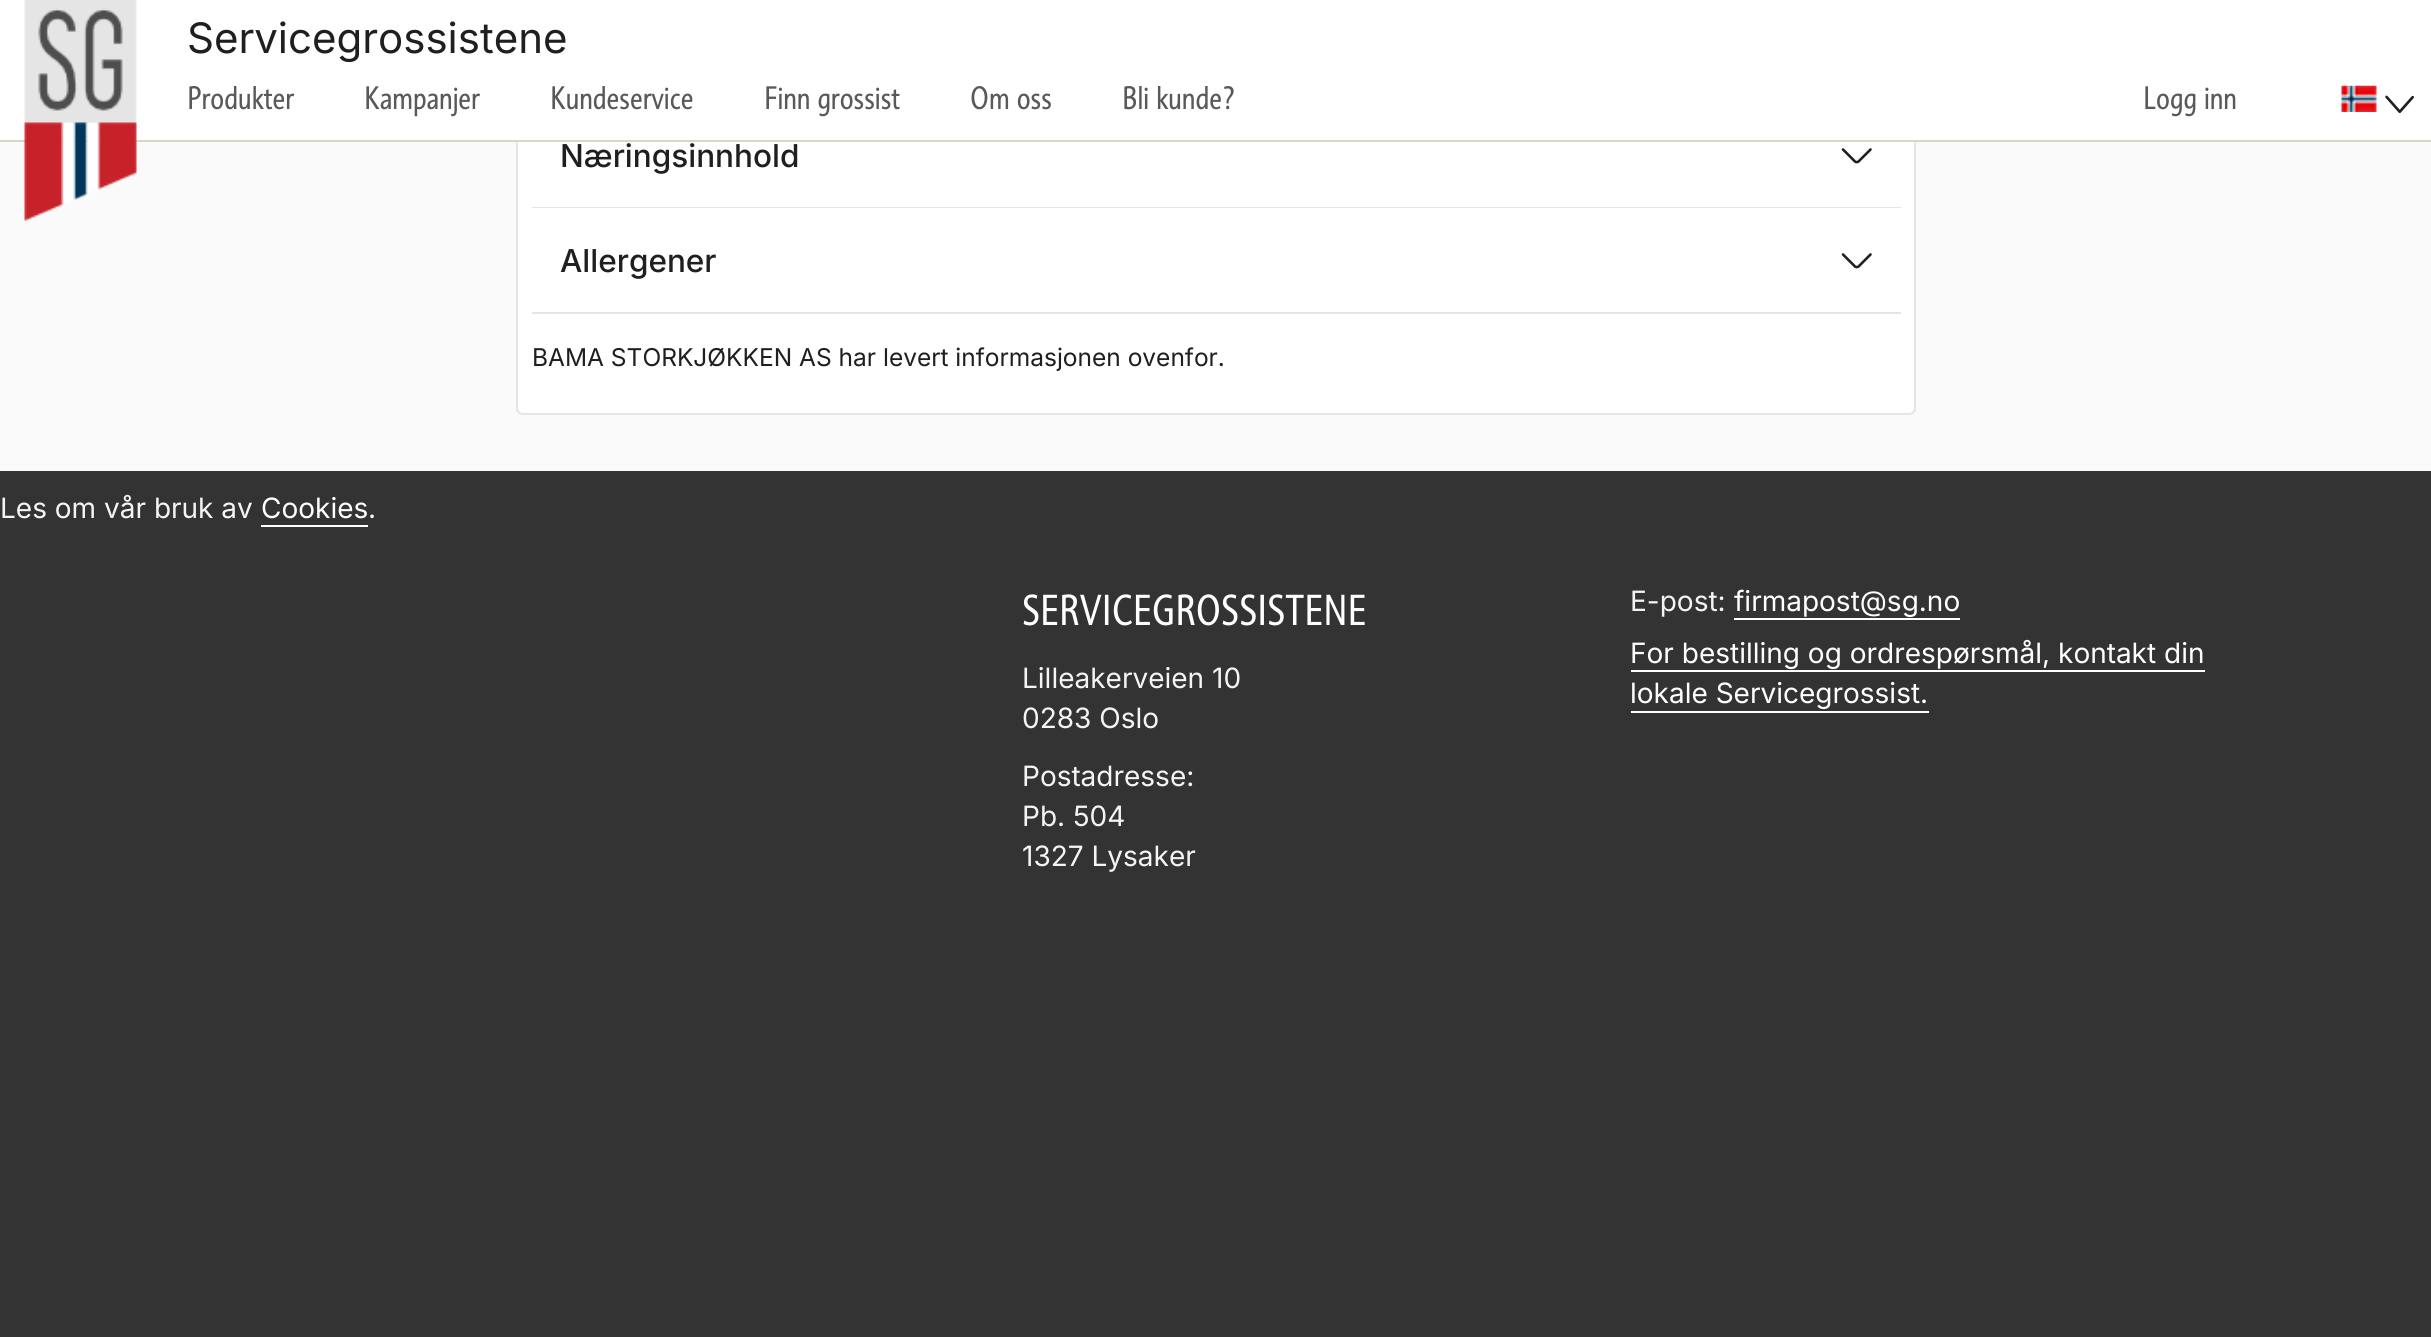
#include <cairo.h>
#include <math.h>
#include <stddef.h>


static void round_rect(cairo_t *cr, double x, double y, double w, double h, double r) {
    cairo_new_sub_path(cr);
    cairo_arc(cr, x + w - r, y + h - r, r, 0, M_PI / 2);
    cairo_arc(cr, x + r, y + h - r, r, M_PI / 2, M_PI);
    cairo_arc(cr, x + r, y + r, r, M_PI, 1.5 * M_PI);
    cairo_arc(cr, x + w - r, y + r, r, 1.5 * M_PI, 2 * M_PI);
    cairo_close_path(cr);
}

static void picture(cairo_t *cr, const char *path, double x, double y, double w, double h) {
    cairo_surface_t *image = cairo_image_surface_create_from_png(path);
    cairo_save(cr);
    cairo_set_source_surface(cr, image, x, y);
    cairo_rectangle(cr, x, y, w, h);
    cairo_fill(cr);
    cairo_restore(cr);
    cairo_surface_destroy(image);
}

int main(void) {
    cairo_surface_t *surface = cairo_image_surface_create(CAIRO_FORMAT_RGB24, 2431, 1337);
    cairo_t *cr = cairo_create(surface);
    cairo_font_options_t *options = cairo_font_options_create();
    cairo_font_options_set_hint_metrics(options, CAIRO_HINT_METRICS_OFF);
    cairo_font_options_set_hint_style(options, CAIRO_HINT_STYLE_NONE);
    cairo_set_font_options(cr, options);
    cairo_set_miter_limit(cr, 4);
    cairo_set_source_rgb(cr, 0.98, 0.98, 0.98);
    cairo_paint(cr);
    cairo_set_source_rgb(cr, 1, 1, 1);
    round_rect(cr, 517, -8, 1398, 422, 6);
    cairo_fill_preserve(cr);
    cairo_set_source_rgb(cr, 0.898, 0.898, 0.898);
    cairo_stroke(cr);
    cairo_set_source_rgb(cr, 1, 1, 1);
    cairo_rectangle(cr, 0, 0, 2431, 140);
    cairo_fill(cr);
    cairo_set_source_rgb(cr, 0.851, 0.843, 0.769);
    cairo_rectangle(cr, 0, 140, 2431, 2);
    cairo_fill(cr);
    picture(cr, "img1.png", 24, 0, 113, 221);
    cairo_select_font_face(cr, "Inter", CAIRO_FONT_SLANT_NORMAL, CAIRO_FONT_WEIGHT_NORMAL);
    cairo_set_font_size(cr, 42);
    cairo_set_source_rgb(cr, 0.122, 0.122, 0.122);
    cairo_move_to(cr, 187, 53);
    cairo_show_text(cr, "Servicegrossistene");
    cairo_select_font_face(cr, "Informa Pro", CAIRO_FONT_SLANT_NORMAL, CAIRO_FONT_WEIGHT_NORMAL);
    cairo_set_font_size(cr, 31.5);
    cairo_set_source_rgb(cr, 0.345, 0.349, 0.357);
    cairo_move_to(cr, 187, 109);
    cairo_show_text(cr, "Produkter");
    cairo_move_to(cr, 364, 109);
    cairo_show_text(cr, "Kampanjer");
    cairo_move_to(cr, 550, 109);
    cairo_show_text(cr, "Kundeservice");
    cairo_move_to(cr, 764, 109);
    cairo_show_text(cr, "Finn grossist");
    cairo_move_to(cr, 970, 109);
    cairo_show_text(cr, "Om oss");
    cairo_move_to(cr, 1122, 109);
    cairo_show_text(cr, "Bli kunde?");
    cairo_move_to(cr, 2143, 109);
    cairo_show_text(cr, "Logg inn");
    picture(cr, "img2.png", 2341, 85, 36, 27);
    picture(cr, "img3.png", 2385, 95, 29, 19);
    cairo_select_font_face(cr, "Inter Medium", CAIRO_FONT_SLANT_NORMAL, CAIRO_FONT_WEIGHT_NORMAL);
    cairo_set_source_rgb(cr, 0.122, 0.122, 0.122);
    cairo_move_to(cr, 560, 167);
    cairo_show_text(cr, "Næringsinnhold");
    cairo_new_path(cr);
    cairo_move_to(cr, 1870.5, 149.5);
    cairo_line_to(cr, 1859, 161);
    cairo_curve_to(cr, 1858, 162.5, 1855.5, 162.5, 1854.5, 161);
    cairo_line_to(cr, 1843, 149.5);
    cairo_set_line_width(cr, 2.6);
    cairo_set_line_cap(cr, CAIRO_LINE_CAP_ROUND);
    cairo_set_line_join(cr, CAIRO_LINE_JOIN_ROUND);
    cairo_stroke(cr);
    cairo_set_source_rgb(cr, 0.898, 0.898, 0.898);
    cairo_rectangle(cr, 532, 207, 1369, 1);
    cairo_fill(cr);
    cairo_rectangle(cr, 532, 312, 1369, 2);
    cairo_fill(cr);
    cairo_set_source_rgb(cr, 0.122, 0.122, 0.122);
    cairo_move_to(cr, 560, 272);
    cairo_show_text(cr, "Allergener");
    cairo_new_path(cr);
    cairo_move_to(cr, 1870.5, 254.5);
    cairo_line_to(cr, 1859, 266);
    cairo_curve_to(cr, 1858, 267.5, 1855.5, 267.5, 1854.5, 266);
    cairo_line_to(cr, 1843, 254.5);
    cairo_stroke(cr);
    cairo_select_font_face(cr, "Inter", CAIRO_FONT_SLANT_NORMAL, CAIRO_FONT_WEIGHT_NORMAL);
    cairo_set_font_size(cr, 24.5);
    cairo_move_to(cr, 532, 366);
    cairo_show_text(cr, "BAMA STORKJØKKEN AS har levert informasjonen ovenfor.");
    cairo_set_source_rgb(cr, 0.2, 0.2, 0.2);
    cairo_rectangle(cr, 0, 471, 2431, 866);
    cairo_fill(cr);
    cairo_set_font_size(cr, 28);
    cairo_set_source_rgb(cr, 0.957, 0.957, 0.949);
    cairo_move_to(cr, 0, 518);
    cairo_show_text(cr, "Les om vår bruk av");
    cairo_set_source_rgb(cr, 1, 1, 1);
    cairo_move_to(cr, 261, 518);
    cairo_show_text(cr, "Cookies");
    cairo_rectangle(cr, 261, 525, 107, 2);
    cairo_fill(cr);
    cairo_set_source_rgb(cr, 0.957, 0.957, 0.949);
    cairo_move_to(cr, 368, 518);
    cairo_show_text(cr, ".");
    cairo_select_font_face(cr, "Informa Pro", CAIRO_FONT_SLANT_NORMAL, CAIRO_FONT_WEIGHT_NORMAL);
    cairo_set_font_size(cr, 42);
    cairo_set_source_rgb(cr, 1, 1, 1);
    cairo_move_to(cr, 1022, 625);
    cairo_show_text(cr, "SERVICEGROSSISTENE");
    cairo_select_font_face(cr, "Inter", CAIRO_FONT_SLANT_NORMAL, CAIRO_FONT_WEIGHT_NORMAL);
    cairo_set_font_size(cr, 28);
    cairo_set_source_rgb(cr, 0.957, 0.957, 0.949);
    cairo_move_to(cr, 1022, 688);
    cairo_show_text(cr, "Lilleakerveien 10");
    cairo_move_to(cr, 1022, 728);
    cairo_show_text(cr, "0283 Oslo");
    cairo_move_to(cr, 1022, 786);
    cairo_show_text(cr, "Postadresse:");
    cairo_move_to(cr, 1022, 826);
    cairo_show_text(cr, "Pb. 504");
    cairo_move_to(cr, 1022, 866);
    cairo_show_text(cr, "1327 Lysaker");
    cairo_move_to(cr, 1630, 611);
    cairo_show_text(cr, "E-post:");
    cairo_set_source_rgb(cr, 1, 1, 1);
    cairo_move_to(cr, 1734, 611);
    cairo_show_text(cr, "firmapost@sg.no");
    cairo_rectangle(cr, 1734, 618, 226, 2);
    cairo_fill(cr);
    cairo_move_to(cr, 1630, 663);
    cairo_show_text(cr, "For bestilling og ordrespørsmål, kontakt din");
    cairo_rectangle(cr, 1631, 670, 574, 2);
    cairo_fill(cr);
    cairo_move_to(cr, 1630, 703);
    cairo_show_text(cr, "lokale Servicegrossist.");
    cairo_rectangle(cr, 1631, 711, 298, 2);
    cairo_fill(cr);
    cairo_surface_write_to_png(surface, "page.png");
    cairo_font_options_destroy(options);
    cairo_destroy(cr);
    cairo_surface_destroy(surface);
    return 0;
}
